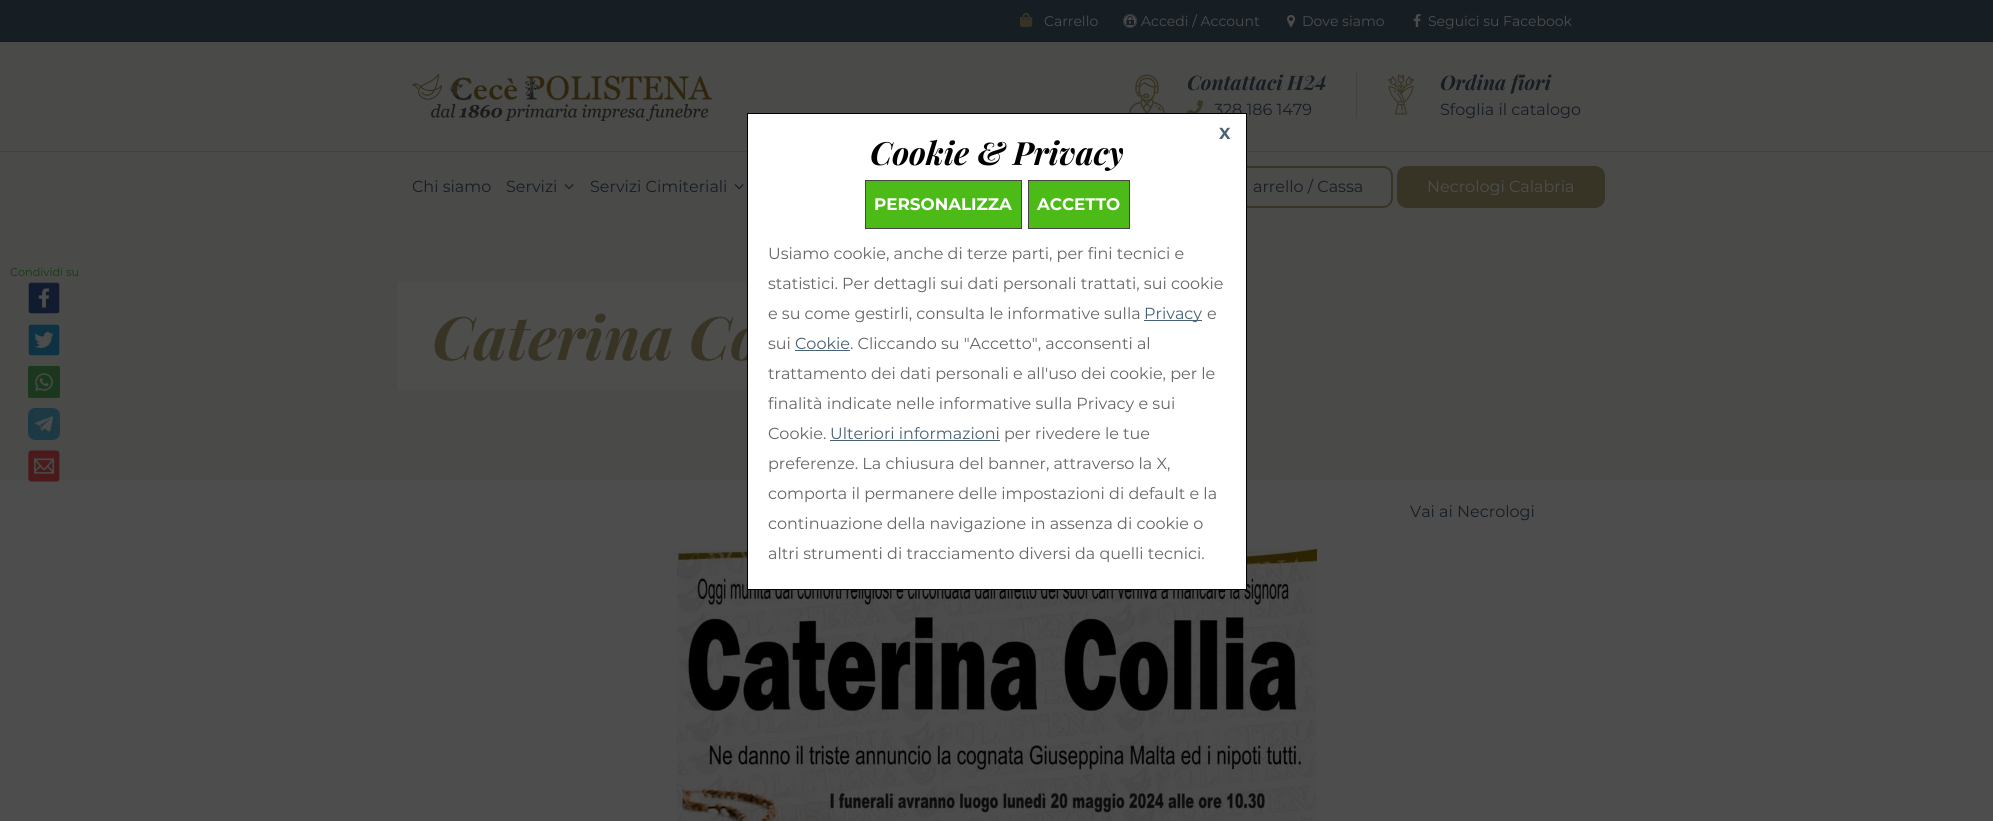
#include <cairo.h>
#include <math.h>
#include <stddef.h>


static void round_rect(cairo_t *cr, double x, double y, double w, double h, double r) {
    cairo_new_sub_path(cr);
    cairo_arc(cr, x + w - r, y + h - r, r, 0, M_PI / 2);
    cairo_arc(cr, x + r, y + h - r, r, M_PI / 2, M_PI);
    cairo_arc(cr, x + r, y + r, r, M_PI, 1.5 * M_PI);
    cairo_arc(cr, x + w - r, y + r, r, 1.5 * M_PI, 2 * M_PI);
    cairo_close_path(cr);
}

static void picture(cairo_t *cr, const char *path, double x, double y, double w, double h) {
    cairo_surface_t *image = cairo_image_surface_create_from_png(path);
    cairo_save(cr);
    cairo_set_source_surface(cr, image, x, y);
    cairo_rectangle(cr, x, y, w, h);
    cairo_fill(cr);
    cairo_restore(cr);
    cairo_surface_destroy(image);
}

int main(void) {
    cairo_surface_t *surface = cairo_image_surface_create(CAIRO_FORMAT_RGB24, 1993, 821);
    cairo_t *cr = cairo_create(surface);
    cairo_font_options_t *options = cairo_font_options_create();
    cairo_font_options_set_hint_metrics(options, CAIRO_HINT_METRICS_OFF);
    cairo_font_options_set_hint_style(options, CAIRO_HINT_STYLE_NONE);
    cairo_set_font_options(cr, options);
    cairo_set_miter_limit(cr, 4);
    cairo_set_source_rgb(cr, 0.302, 0.302, 0.302);
    cairo_paint(cr);
    cairo_set_source_rgb(cr, 0.29, 0.29, 0.286);
    cairo_rectangle(cr, 0, 42, 1993, 438);
    cairo_fill(cr);
    cairo_set_source_rgb(cr, 0.086, 0.114, 0.137);
    cairo_rectangle(cr, 0, 0, 1993, 42);
    cairo_fill(cr);
    picture(cr, "img1.png", 1020, 12, 13, 15);
    cairo_select_font_face(cr, "Montserrat", CAIRO_FONT_SLANT_NORMAL, CAIRO_FONT_WEIGHT_NORMAL);
    cairo_set_font_size(cr, 14);
    cairo_set_source_rgb(cr, 0.302, 0.302, 0.302);
    cairo_move_to(cr, 1044, 26);
    cairo_show_text(cr, "Carrello");
    picture(cr, "img2.png", 1123, 14, 14, 14);
    cairo_move_to(cr, 1141, 26);
    cairo_show_text(cr, "Accedi / Account");
    picture(cr, "img3.png", 1287, 15, 8, 12);
    cairo_move_to(cr, 1302, 26);
    cairo_show_text(cr, "Dove siamo");
    picture(cr, "img4.png", 1413, 14, 8, 13);
    cairo_move_to(cr, 1428, 26);
    cairo_show_text(cr, "Seguici su Facebook");
    picture(cr, "img5.png", 412, 74, 300, 47);
    picture(cr, "img6.png", 1129, 74, 36, 39);
    cairo_select_font_face(cr, "Playfair Display", CAIRO_FONT_SLANT_ITALIC, CAIRO_FONT_WEIGHT_BOLD);
    cairo_set_font_size(cr, 20);
    cairo_set_source_rgb(cr, 0.086, 0.114, 0.137);
    cairo_move_to(cr, 1187, 90);
    cairo_show_text(cr, "Contattaci");
    cairo_select_font_face(cr, "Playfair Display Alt", CAIRO_FONT_SLANT_ITALIC, CAIRO_FONT_WEIGHT_BOLD);
    cairo_move_to(cr, 1287, 90);
    cairo_show_text(cr, "H24");
    picture(cr, "img7.png", 1187, 100, 16, 13);
    cairo_select_font_face(cr, "Montserrat", CAIRO_FONT_SLANT_NORMAL, CAIRO_FONT_WEIGHT_NORMAL);
    cairo_set_font_size(cr, 16);
    cairo_move_to(cr, 1214, 115);
    cairo_show_text(cr, "328 186 1479");
    cairo_set_source_rgb(cr, 0.251, 0.255, 0.255);
    cairo_rectangle(cr, 1356, 71, 1, 47);
    cairo_fill(cr);
    picture(cr, "img8.png", 1388, 74, 26, 41);
    cairo_select_font_face(cr, "Playfair Display", CAIRO_FONT_SLANT_ITALIC, CAIRO_FONT_WEIGHT_BOLD);
    cairo_set_font_size(cr, 20);
    cairo_set_source_rgb(cr, 0.086, 0.114, 0.137);
    cairo_move_to(cr, 1440, 90);
    cairo_show_text(cr, "Ordina fiori");
    cairo_select_font_face(cr, "Montserrat", CAIRO_FONT_SLANT_NORMAL, CAIRO_FONT_WEIGHT_NORMAL);
    cairo_set_font_size(cr, 16);
    cairo_move_to(cr, 1440, 115);
    cairo_show_text(cr, "Sfoglia il catalogo");
    cairo_set_source_rgb(cr, 0.251, 0.255, 0.255);
    cairo_rectangle(cr, 0, 151, 1993, 1);
    cairo_fill(cr);
    cairo_set_source_rgb(cr, 0.086, 0.114, 0.137);
    cairo_move_to(cr, 412, 192);
    cairo_show_text(cr, "Chi siamo");
    cairo_move_to(cr, 506, 192);
    cairo_show_text(cr, "Servizi");
    picture(cr, "img9.png", 564, 184, 10, 6);
    cairo_move_to(cr, 590, 192);
    cairo_show_text(cr, "Servizi Cimiteriali");
    picture(cr, "img9.png", 734, 184, 10, 6);
    round_rect(cr, 1213, 167, 179, 40, 9);
    cairo_set_source_rgb(cr, 0.22, 0.204, 0.145);
    cairo_stroke(cr);
    cairo_set_source_rgb(cr, 0.086, 0.114, 0.137);
    cairo_move_to(cr, 1253, 192);
    cairo_show_text(cr, "arrello / Cassa");
    cairo_set_source_rgb(cr, 0.22, 0.204, 0.145);
    round_rect(cr, 1398, 167, 206, 40, 9);
    cairo_fill_preserve(cr);
    cairo_stroke(cr);
    cairo_set_source_rgb(cr, 0.302, 0.302, 0.302);
    cairo_move_to(cr, 1427, 192);
    cairo_show_text(cr, "Necrologi Calabria");
    cairo_set_source_rgb(cr, 0.302, 0.302, 0.298);
    cairo_rectangle(cr, 397, 282, 350, 108);
    cairo_fill(cr);
    cairo_select_font_face(cr, "Playfair Display", CAIRO_FONT_SLANT_ITALIC, CAIRO_FONT_WEIGHT_BOLD);
    cairo_set_font_size(cr, 60);
    cairo_set_source_rgb(cr, 0.22, 0.204, 0.145);
    cairo_move_to(cr, 432, 360);
    cairo_show_text(cr, "Caterina Co");
    cairo_select_font_face(cr, "Montserrat", CAIRO_FONT_SLANT_NORMAL, CAIRO_FONT_WEIGHT_NORMAL);
    cairo_set_font_size(cr, 11.25);
    cairo_set_source_rgb(cr, 0.059, 0.243, 0.059);
    cairo_move_to(cr, 10, 276);
    cairo_show_text(cr, "Condividi su");
    picture(cr, "img10.png", 28, 282, 32, 32);
    picture(cr, "img11.png", 28, 324, 32, 32);
    picture(cr, "img12.png", 28, 366, 32, 32);
    picture(cr, "img13.png", 28, 408, 32, 32);
    picture(cr, "img14.png", 28, 450, 32, 32);
    picture(cr, "img15.png", 677, 549, 640, 272);
    cairo_set_font_size(cr, 16);
    cairo_set_source_rgb(cr, 0.086, 0.114, 0.137);
    cairo_move_to(cr, 1410, 517);
    cairo_show_text(cr, "Vai ai Necrologi");
    cairo_set_source_rgb(cr, 1, 1, 1);
    cairo_rectangle(cr, 747.5, 113.5, 499, 476);
    cairo_fill_preserve(cr);
    cairo_set_source_rgb(cr, 0, 0, 0);
    cairo_set_line_width(cr, 1);
    cairo_stroke(cr);
    cairo_select_font_face(cr, "Montserrat", CAIRO_FONT_SLANT_NORMAL, CAIRO_FONT_WEIGHT_BOLD);
    cairo_set_source_rgb(cr, 0.282, 0.38, 0.451);
    cairo_move_to(cr, 1219, 139);
    cairo_show_text(cr, "X");
    cairo_select_font_face(cr, "Playfair Display", CAIRO_FONT_SLANT_ITALIC, CAIRO_FONT_WEIGHT_BOLD);
    cairo_set_font_size(cr, 32);
    cairo_set_source_rgb(cr, 0, 0, 0);
    cairo_move_to(cr, 870, 165);
    cairo_show_text(cr, "Cookie & Privacy");
    cairo_set_source_rgb(cr, 0.298, 0.733, 0.09);
    cairo_rectangle(cr, 865.5, 180.5, 156, 48);
    cairo_fill_preserve(cr);
    cairo_set_source_rgb(cr, 0.267, 0.267, 0.267);
    cairo_stroke(cr);
    cairo_select_font_face(cr, "Montserrat", CAIRO_FONT_SLANT_NORMAL, CAIRO_FONT_WEIGHT_BOLD);
    cairo_set_font_size(cr, 16.75);
    cairo_set_source_rgb(cr, 1, 1, 1);
    cairo_move_to(cr, 874, 210);
    cairo_show_text(cr, "PERSONALIZZA");
    cairo_set_source_rgb(cr, 0.298, 0.733, 0.09);
    cairo_rectangle(cr, 1028.5, 180.5, 101, 48);
    cairo_fill_preserve(cr);
    cairo_set_source_rgb(cr, 0.267, 0.267, 0.267);
    cairo_stroke(cr);
    cairo_set_source_rgb(cr, 1, 1, 1);
    cairo_move_to(cr, 1037, 210);
    cairo_show_text(cr, "ACCETTO");
    cairo_select_font_face(cr, "Montserrat", CAIRO_FONT_SLANT_NORMAL, CAIRO_FONT_WEIGHT_NORMAL);
    cairo_set_font_size(cr, 16);
    cairo_set_source_rgb(cr, 0.4, 0.4, 0.4);
    cairo_move_to(cr, 768, 259);
    cairo_show_text(cr, "Usiamo cookie, anche di terze parti, per fini tecnici e");
    cairo_move_to(cr, 768, 289);
    cairo_show_text(cr, "statistici. Per dettagli sui dati personali trattati, sui cookie");
    cairo_move_to(cr, 768, 319);
    cairo_show_text(cr, "e su come gestirli, consulta le informative sulla");
    cairo_set_source_rgb(cr, 0.282, 0.38, 0.451);
    cairo_rectangle(cr, 1144, 320, 58, 1);
    cairo_fill(cr);
    cairo_move_to(cr, 1144, 319);
    cairo_show_text(cr, "Privacy");
    cairo_set_source_rgb(cr, 0.4, 0.4, 0.4);
    cairo_move_to(cr, 1207, 319);
    cairo_show_text(cr, "e");
    cairo_move_to(cr, 768, 349);
    cairo_show_text(cr, "sui");
    cairo_set_source_rgb(cr, 0.282, 0.38, 0.451);
    cairo_move_to(cr, 795, 349);
    cairo_show_text(cr, "Cookie");
    cairo_rectangle(cr, 795, 350, 55, 1);
    cairo_fill(cr);
    cairo_set_source_rgb(cr, 0.4, 0.4, 0.4);
    cairo_move_to(cr, 850, 349);
    cairo_show_text(cr, ". Cliccando su \"Accetto\", acconsenti al");
    cairo_move_to(cr, 768, 379);
    cairo_show_text(cr, "trattamento dei dati personali e all'uso dei cookie, per le");
    cairo_move_to(cr, 768, 409);
    cairo_show_text(cr, "finalità indicate nelle informative sulla Privacy e sui");
    cairo_move_to(cr, 768, 439);
    cairo_show_text(cr, "Cookie.");
    cairo_set_source_rgb(cr, 0.282, 0.38, 0.451);
    cairo_move_to(cr, 830, 439);
    cairo_show_text(cr, "Ulteriori informazioni");
    cairo_rectangle(cr, 830, 440, 170, 1);
    cairo_fill(cr);
    cairo_set_source_rgb(cr, 0.4, 0.4, 0.4);
    cairo_move_to(cr, 1004, 439);
    cairo_show_text(cr, "per rivedere le tue");
    cairo_move_to(cr, 768, 469);
    cairo_show_text(cr, "preferenze. La chiusura del banner, attraverso la X,");
    cairo_move_to(cr, 768, 499);
    cairo_show_text(cr, "comporta il permanere delle impostazioni di default e la");
    cairo_move_to(cr, 768, 529);
    cairo_show_text(cr, "continuazione della navigazione in assenza di cookie o");
    cairo_move_to(cr, 768, 559);
    cairo_show_text(cr, "altri strumenti di tracciamento diversi da quelli tecnici.");
    cairo_surface_write_to_png(surface, "page.png");
    cairo_font_options_destroy(options);
    cairo_destroy(cr);
    cairo_surface_destroy(surface);
    return 0;
}
